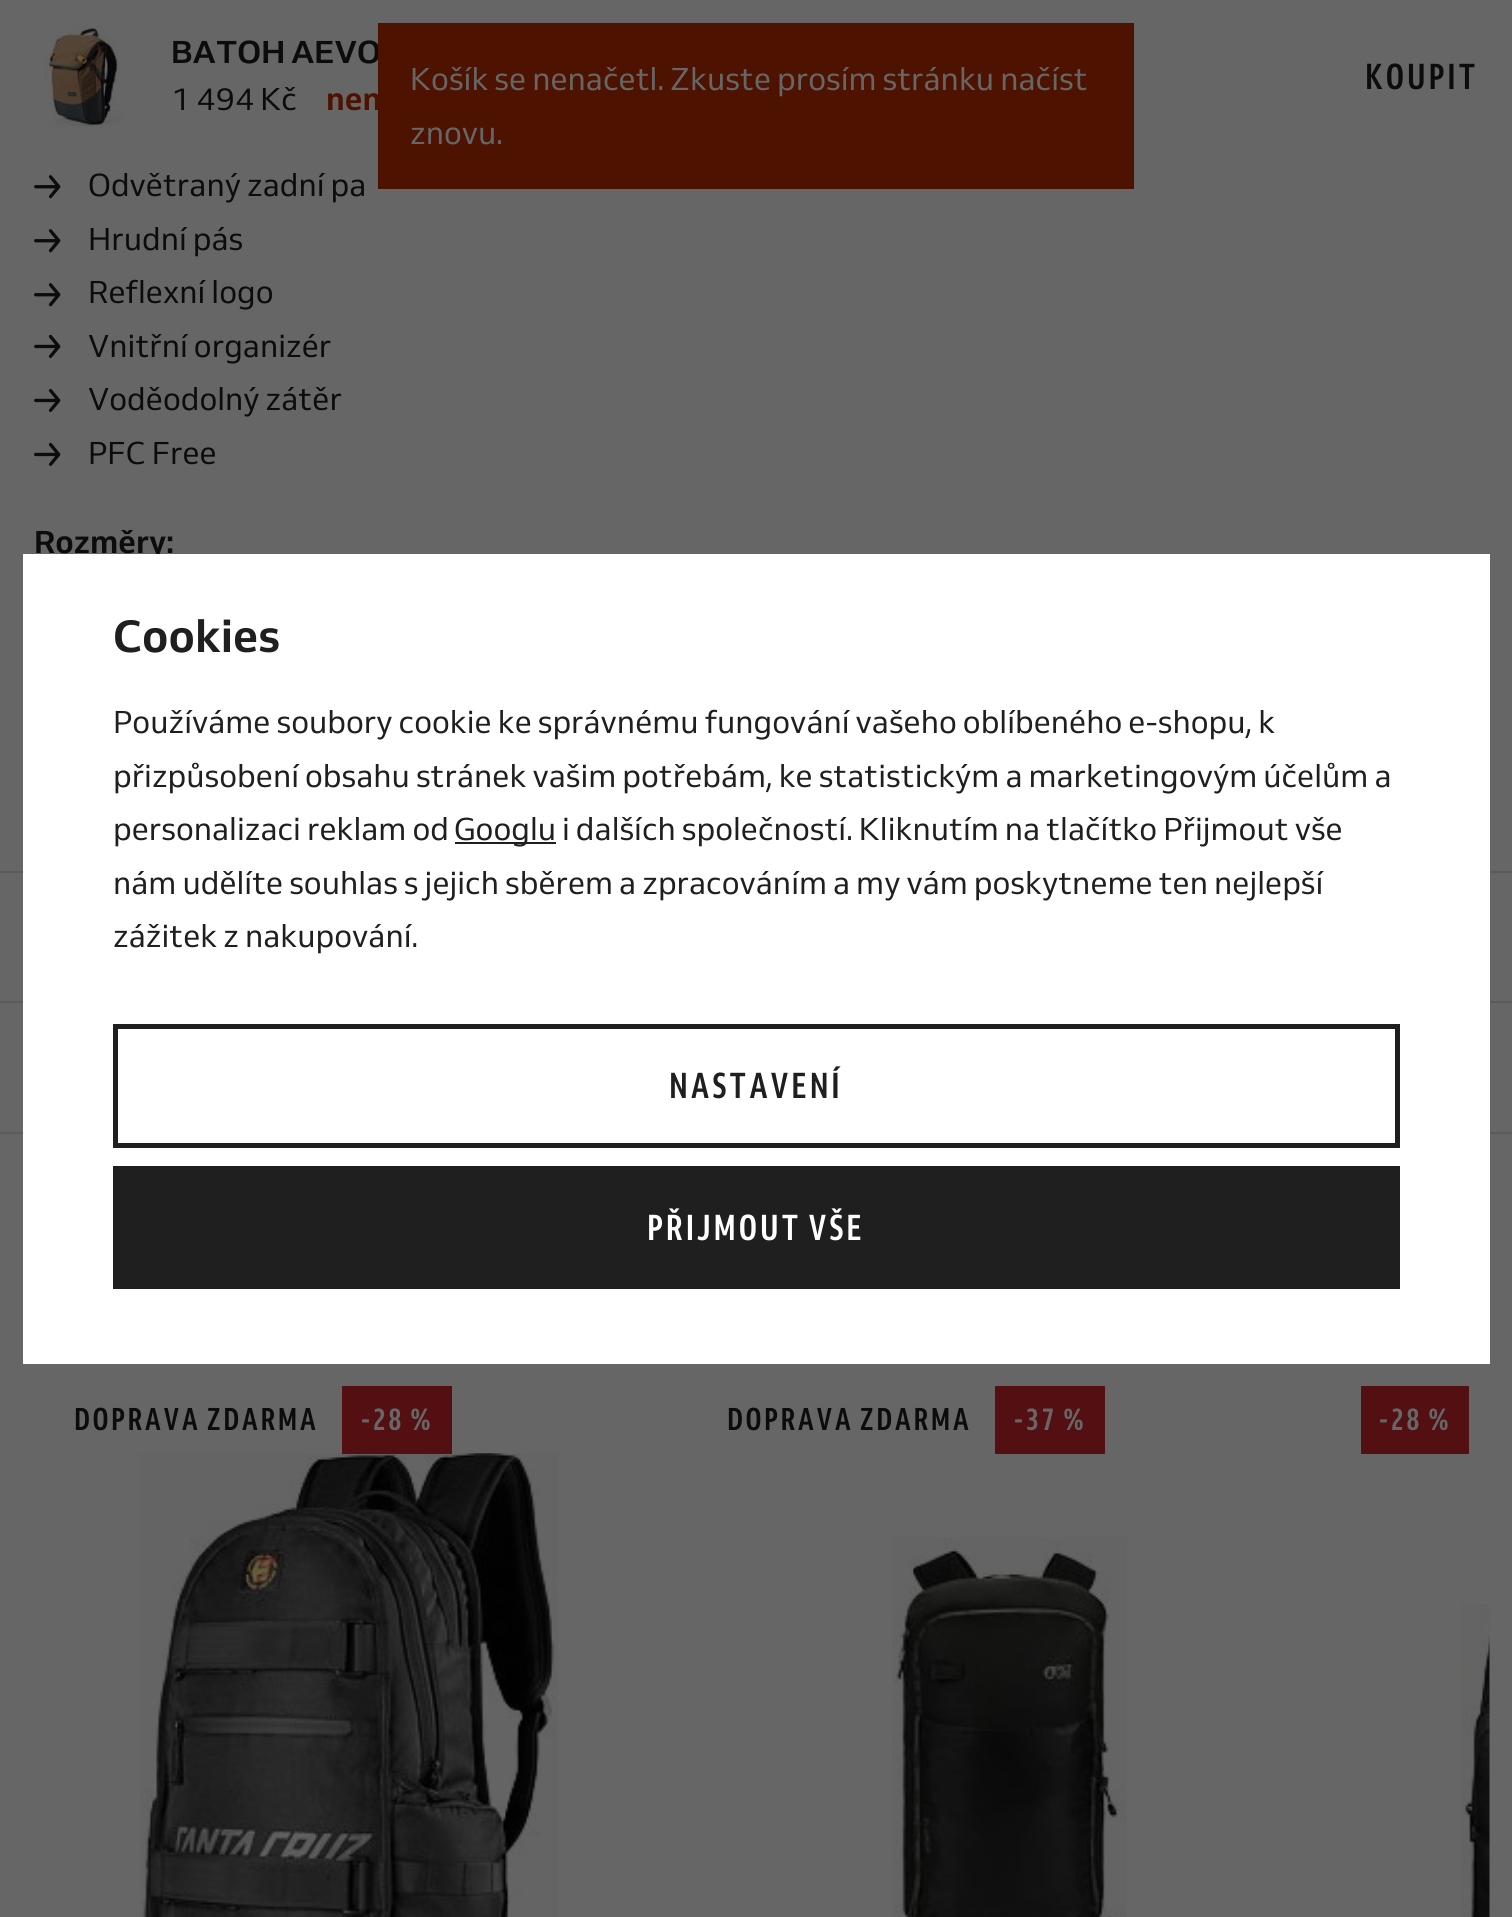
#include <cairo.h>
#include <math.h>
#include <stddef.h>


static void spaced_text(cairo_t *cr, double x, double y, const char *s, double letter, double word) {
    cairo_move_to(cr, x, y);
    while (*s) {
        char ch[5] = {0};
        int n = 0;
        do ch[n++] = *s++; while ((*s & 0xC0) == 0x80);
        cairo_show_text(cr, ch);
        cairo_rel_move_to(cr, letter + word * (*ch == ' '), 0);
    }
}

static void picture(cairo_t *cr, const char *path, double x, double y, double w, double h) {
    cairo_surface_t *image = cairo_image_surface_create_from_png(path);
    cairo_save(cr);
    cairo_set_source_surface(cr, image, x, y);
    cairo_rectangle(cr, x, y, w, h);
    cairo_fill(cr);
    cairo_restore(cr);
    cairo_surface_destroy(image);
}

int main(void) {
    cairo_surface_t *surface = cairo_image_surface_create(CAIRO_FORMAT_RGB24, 1512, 1917);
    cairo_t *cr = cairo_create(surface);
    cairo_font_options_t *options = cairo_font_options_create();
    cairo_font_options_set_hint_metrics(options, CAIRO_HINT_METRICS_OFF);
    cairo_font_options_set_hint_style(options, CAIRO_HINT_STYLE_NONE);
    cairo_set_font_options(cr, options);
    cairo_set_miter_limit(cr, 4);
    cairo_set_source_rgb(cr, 0.4, 0.4, 0.4);
    cairo_paint(cr);
    picture(cr, "img1.png", 37, 24, 87, 104);
    cairo_select_font_face(cr, "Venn", CAIRO_FONT_SLANT_NORMAL, CAIRO_FONT_WEIGHT_BOLD);
    cairo_set_font_size(cr, 31.5);
    cairo_set_source_rgb(cr, 0.047, 0.047, 0.047);
    cairo_move_to(cr, 171, 63);
    cairo_show_text(cr, "BATOH AEVO");
    cairo_select_font_face(cr, "Venn", CAIRO_FONT_SLANT_NORMAL, CAIRO_FONT_WEIGHT_NORMAL);
    cairo_move_to(cr, 171, 110);
    cairo_show_text(cr, "1 494 Kč");
    cairo_select_font_face(cr, "Venn", CAIRO_FONT_SLANT_NORMAL, CAIRO_FONT_WEIGHT_BOLD);
    cairo_set_source_rgb(cr, 0.302, 0.071, 0);
    cairo_move_to(cr, 326, 110);
    cairo_show_text(cr, "nen");
    cairo_select_font_face(cr, "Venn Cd", CAIRO_FONT_SLANT_NORMAL, CAIRO_FONT_WEIGHT_BOLD);
    cairo_set_font_size(cr, 36);
    cairo_set_source_rgb(cr, 0.047, 0.047, 0.047);
    spaced_text(cr, 1365, 89, "KOUPIT", 2.9, 0);
    picture(cr, "img2.png", 34, 175, 27, 24);
    cairo_select_font_face(cr, "Venn", CAIRO_FONT_SLANT_NORMAL, CAIRO_FONT_WEIGHT_NORMAL);
    cairo_set_font_size(cr, 31.5);
    cairo_move_to(cr, 88, 196);
    cairo_show_text(cr, "Odvětraný zadní pa");
    picture(cr, "img2.png", 34, 229, 27, 24);
    cairo_move_to(cr, 88, 250);
    cairo_show_text(cr, "Hrudní pás");
    picture(cr, "img2.png", 34, 283, 27, 24);
    cairo_move_to(cr, 88, 303);
    cairo_show_text(cr, "Reflexní logo");
    picture(cr, "img3.png", 34, 334, 27, 24);
    cairo_move_to(cr, 88, 357);
    cairo_show_text(cr, "Vnitřní organizér");
    picture(cr, "img3.png", 34, 388, 27, 24);
    cairo_move_to(cr, 88, 410);
    cairo_show_text(cr, "Voděodolný zátěr");
    picture(cr, "img3.png", 34, 442, 27, 24);
    cairo_move_to(cr, 88, 464);
    cairo_show_text(cr, "PFC Free");
    cairo_select_font_face(cr, "Venn", CAIRO_FONT_SLANT_NORMAL, CAIRO_FONT_WEIGHT_BOLD);
    cairo_move_to(cr, 34, 553);
    cairo_show_text(cr, "Rozměry:");
    cairo_set_source_rgb(cr, 0.357, 0.357, 0.357);
    cairo_rectangle(cr, 0, 871, 1512, 2);
    cairo_fill(cr);
    cairo_rectangle(cr, 0, 1001, 1512, 2);
    cairo_fill(cr);
    cairo_rectangle(cr, 0, 1132, 1512, 2);
    cairo_fill(cr);
    picture(cr, "img4.png", 140, 1453, 418, 464);
    cairo_set_source_rgb(cr, 0.4, 0.4, 0.4);
    cairo_rectangle(cr, 311, 1453, 22, 1);
    cairo_fill(cr);
    cairo_select_font_face(cr, "Venn Cd", CAIRO_FONT_SLANT_NORMAL, CAIRO_FONT_WEIGHT_BOLD);
    cairo_set_source_rgb(cr, 0.047, 0.047, 0.047);
    spaced_text(cr, 74, 1430, "DOPRAVA ZDARMA", 2.5, 0);
    cairo_set_source_rgb(cr, 0.325, 0.059, 0.067);
    cairo_rectangle(cr, 342, 1386, 110, 68);
    cairo_fill(cr);
    cairo_set_source_rgb(cr, 0.4, 0.4, 0.4);
    spaced_text(cr, 361, 1430, "-28 %", 2.5, 0);
    cairo_set_source_rgb(cr, 0.047, 0.047, 0.047);
    spaced_text(cr, 727, 1430, "DOPRAVA ZDARMA", 2.5, 0);
    cairo_set_source_rgb(cr, 0.325, 0.059, 0.067);
    cairo_rectangle(cr, 995, 1386, 110, 68);
    cairo_fill(cr);
    cairo_set_source_rgb(cr, 0.4, 0.4, 0.4);
    spaced_text(cr, 1014, 1430, "-37 %", 2.5, 0);
    picture(cr, "img5.png", 892, 1537, 235, 380);
    cairo_set_source_rgb(cr, 0.325, 0.059, 0.067);
    cairo_rectangle(cr, 1361, 1386, 108, 68);
    cairo_fill(cr);
    cairo_set_source_rgb(cr, 0.4, 0.4, 0.4);
    spaced_text(cr, 1379, 1430, "-28 %", 2.5, 0);
    picture(cr, "img6.png", 1461, 1604, 29, 313);
    cairo_set_source_rgb(cr, 0.302, 0.071, 0);
    cairo_rectangle(cr, 378, 23, 756, 166);
    cairo_fill(cr);
    cairo_select_font_face(cr, "Venn", CAIRO_FONT_SLANT_NORMAL, CAIRO_FONT_WEIGHT_NORMAL);
    cairo_set_source_rgb(cr, 0.4, 0.4, 0.4);
    cairo_move_to(cr, 410, 90);
    cairo_show_text(cr, "Košík se nenačetl. Zkuste prosím stránku načíst");
    cairo_move_to(cr, 410, 144);
    cairo_show_text(cr, "znovu.");
    cairo_set_source_rgb(cr, 1, 1, 1);
    cairo_rectangle(cr, 23, 554, 1467, 810);
    cairo_fill(cr);
    cairo_select_font_face(cr, "Venn", CAIRO_FONT_SLANT_NORMAL, CAIRO_FONT_WEIGHT_BOLD);
    cairo_set_font_size(cr, 45);
    cairo_set_source_rgb(cr, 0.122, 0.122, 0.122);
    cairo_move_to(cr, 113, 652);
    cairo_show_text(cr, "Cookies");
    cairo_select_font_face(cr, "Venn", CAIRO_FONT_SLANT_NORMAL, CAIRO_FONT_WEIGHT_NORMAL);
    cairo_set_font_size(cr, 31.5);
    cairo_move_to(cr, 113, 733);
    cairo_show_text(cr, "Používáme soubory cookie ke správnému fungování vašeho oblíbeného e-shopu, k");
    cairo_move_to(cr, 113, 787);
    cairo_show_text(cr, "přizpůsobení obsahu stránek vašim potřebám, ke statistickým a marketingovým účelům a");
    cairo_move_to(cr, 113, 840);
    cairo_show_text(cr, "personalizaci reklam od");
    cairo_rectangle(cr, 455, 842, 101, 2);
    cairo_fill(cr);
    cairo_move_to(cr, 454, 840);
    cairo_show_text(cr, "Googlu i dalších společností. Kliknutím na tlačítko Přijmout vše");
    cairo_move_to(cr, 113, 894);
    cairo_show_text(cr, "nám udělíte souhlas s jejich sběrem a zpracováním a my vám poskytneme ten nejlepší");
    cairo_move_to(cr, 113, 947);
    cairo_show_text(cr, "zážitek z nakupování.");
    cairo_rectangle(cr, 115.5, 1026.5, 1282, 119);
    cairo_set_line_width(cr, 5);
    cairo_stroke(cr);
    cairo_select_font_face(cr, "Venn Cd", CAIRO_FONT_SLANT_NORMAL, CAIRO_FONT_WEIGHT_BOLD);
    cairo_set_font_size(cr, 36);
    spaced_text(cr, 669, 1098, "NASTAVENÍ", 2.9, 0);
    cairo_rectangle(cr, 113, 1166, 1287, 123);
    cairo_fill(cr);
    cairo_set_source_rgb(cr, 1, 1, 1);
    spaced_text(cr, 647, 1240, "PŘIJMOUT VŠE", 2.9, 0);
    cairo_surface_write_to_png(surface, "page.png");
    cairo_font_options_destroy(options);
    cairo_destroy(cr);
    cairo_surface_destroy(surface);
    return 0;
}
